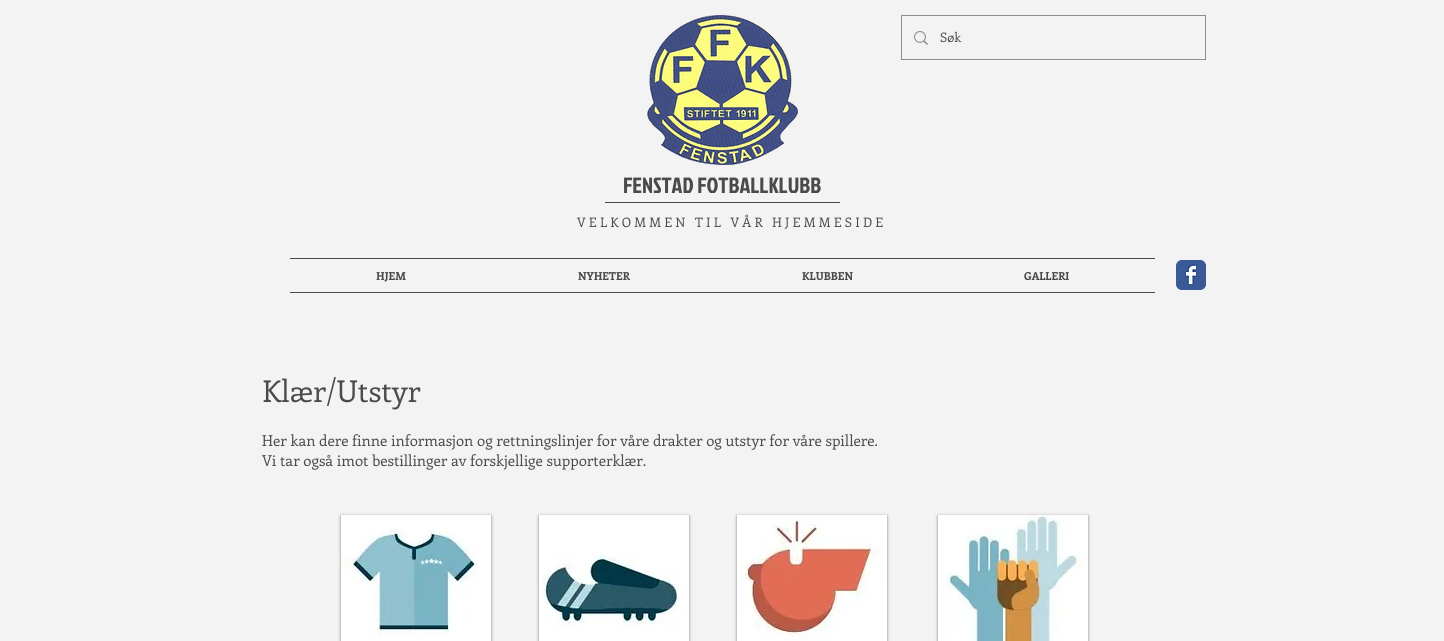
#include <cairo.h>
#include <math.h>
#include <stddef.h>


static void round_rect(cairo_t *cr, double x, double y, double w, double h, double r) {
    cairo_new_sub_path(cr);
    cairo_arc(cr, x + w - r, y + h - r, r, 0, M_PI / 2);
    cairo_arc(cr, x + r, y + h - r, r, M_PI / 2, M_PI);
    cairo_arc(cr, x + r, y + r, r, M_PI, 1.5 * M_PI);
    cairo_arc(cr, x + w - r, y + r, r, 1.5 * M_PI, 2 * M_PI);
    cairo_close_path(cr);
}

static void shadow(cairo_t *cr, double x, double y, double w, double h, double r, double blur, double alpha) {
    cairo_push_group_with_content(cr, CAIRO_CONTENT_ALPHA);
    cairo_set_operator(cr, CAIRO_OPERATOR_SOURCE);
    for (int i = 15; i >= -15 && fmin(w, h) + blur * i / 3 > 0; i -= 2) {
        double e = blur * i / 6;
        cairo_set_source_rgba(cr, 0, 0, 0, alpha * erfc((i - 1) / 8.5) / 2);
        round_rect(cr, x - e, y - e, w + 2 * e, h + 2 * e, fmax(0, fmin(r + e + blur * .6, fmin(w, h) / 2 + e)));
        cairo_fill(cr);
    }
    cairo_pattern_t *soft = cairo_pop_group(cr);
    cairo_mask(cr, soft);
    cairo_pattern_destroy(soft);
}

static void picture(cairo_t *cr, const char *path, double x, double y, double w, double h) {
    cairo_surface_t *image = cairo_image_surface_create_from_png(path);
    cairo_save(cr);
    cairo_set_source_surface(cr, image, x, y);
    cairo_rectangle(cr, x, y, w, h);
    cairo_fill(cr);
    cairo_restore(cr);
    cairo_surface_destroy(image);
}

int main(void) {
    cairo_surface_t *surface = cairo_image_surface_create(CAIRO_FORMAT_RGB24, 1444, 641);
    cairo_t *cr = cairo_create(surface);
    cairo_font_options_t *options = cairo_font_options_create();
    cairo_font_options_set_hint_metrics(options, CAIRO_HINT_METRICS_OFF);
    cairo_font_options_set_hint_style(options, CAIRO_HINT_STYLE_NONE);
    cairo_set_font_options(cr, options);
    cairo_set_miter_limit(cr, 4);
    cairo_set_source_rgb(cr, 0.953, 0.953, 0.953);
    cairo_paint(cr);
    picture(cr, "img1.png", 647, 15, 151, 150);
    cairo_rectangle(cr, 901.5, 15.5, 304, 44);
    cairo_set_source_rgb(cr, 0.557, 0.557, 0.557);
    cairo_set_line_width(cr, 1);
    cairo_stroke(cr);
    picture(cr, "img2.png", 914, 31, 14, 14);
    cairo_select_font_face(cr, "Enriqueta", CAIRO_FONT_SLANT_NORMAL, CAIRO_FONT_WEIGHT_NORMAL);
    cairo_set_font_size(cr, 13);
    cairo_set_source_rgb(cr, 0.29, 0.29, 0.29);
    cairo_move_to(cr, 940, 42);
    cairo_show_text(cr, "Søk");
    cairo_select_font_face(cr, "Jockey One", CAIRO_FONT_SLANT_NORMAL, CAIRO_FONT_WEIGHT_NORMAL);
    cairo_set_font_size(cr, 22);
    cairo_move_to(cr, 623, 193);
    cairo_show_text(cr, "FENSTAD FOTBALLKLUBB");
    cairo_rectangle(cr, 605, 202, 235, 1);
    cairo_fill(cr);
    cairo_select_font_face(cr, "Enriqueta", CAIRO_FONT_SLANT_NORMAL, CAIRO_FONT_WEIGHT_NORMAL);
    cairo_set_font_size(cr, 13);
    cairo_move_to(cr, 577, 227);
    cairo_show_text(cr, "V E L K O M M E N   T I L   V Å R   H J E M M E S I D E");
    cairo_rectangle(cr, 290, 258, 865, 1);
    cairo_fill(cr);
    cairo_rectangle(cr, 290, 292, 865, 1);
    cairo_fill(cr);
    cairo_select_font_face(cr, "Enriqueta", CAIRO_FONT_SLANT_NORMAL, CAIRO_FONT_WEIGHT_BOLD);
    cairo_set_font_size(cr, 11);
    cairo_move_to(cr, 376, 280);
    cairo_show_text(cr, "HJEM");
    cairo_move_to(cr, 578, 280);
    cairo_show_text(cr, "NYHETER");
    cairo_move_to(cr, 802, 280);
    cairo_show_text(cr, "KLUBBEN");
    cairo_move_to(cr, 1024, 280);
    cairo_show_text(cr, "GALLERI");
    picture(cr, "img3.png", 1176, 260, 30, 30);
    cairo_select_font_face(cr, "Enriqueta", CAIRO_FONT_SLANT_NORMAL, CAIRO_FONT_WEIGHT_NORMAL);
    cairo_set_font_size(cr, 30);
    cairo_move_to(cr, 262, 402);
    cairo_show_text(cr, "Klær/Utstyr");
    cairo_set_font_size(cr, 15);
    cairo_move_to(cr, 262, 446);
    cairo_show_text(cr, "Her kan dere finne informasjon og rettningslinjer for våre drakter og utstyr for våre spillere.");
    cairo_move_to(cr, 262, 466);
    cairo_show_text(cr, "Vi tar også imot bestillinger av forskjellige supporterklær.");
    cairo_set_source_rgb(cr, 0, 0, 0);
    shadow(cr, 341, 516, 150, 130, 0, 1.5, 0.5);
    picture(cr, "img4.png", 341, 515, 150, 126);
    shadow(cr, 539, 516, 150, 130, 0, 1.5, 0.5);
    picture(cr, "img5.png", 539, 515, 150, 126);
    shadow(cr, 737, 516, 150, 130, 0, 1.5, 0.5);
    picture(cr, "img6.png", 737, 515, 150, 126);
    shadow(cr, 938, 516, 150, 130, 0, 1.5, 0.5);
    picture(cr, "img7.png", 938, 515, 150, 126);
    cairo_surface_write_to_png(surface, "page.png");
    cairo_font_options_destroy(options);
    cairo_destroy(cr);
    cairo_surface_destroy(surface);
    return 0;
}
